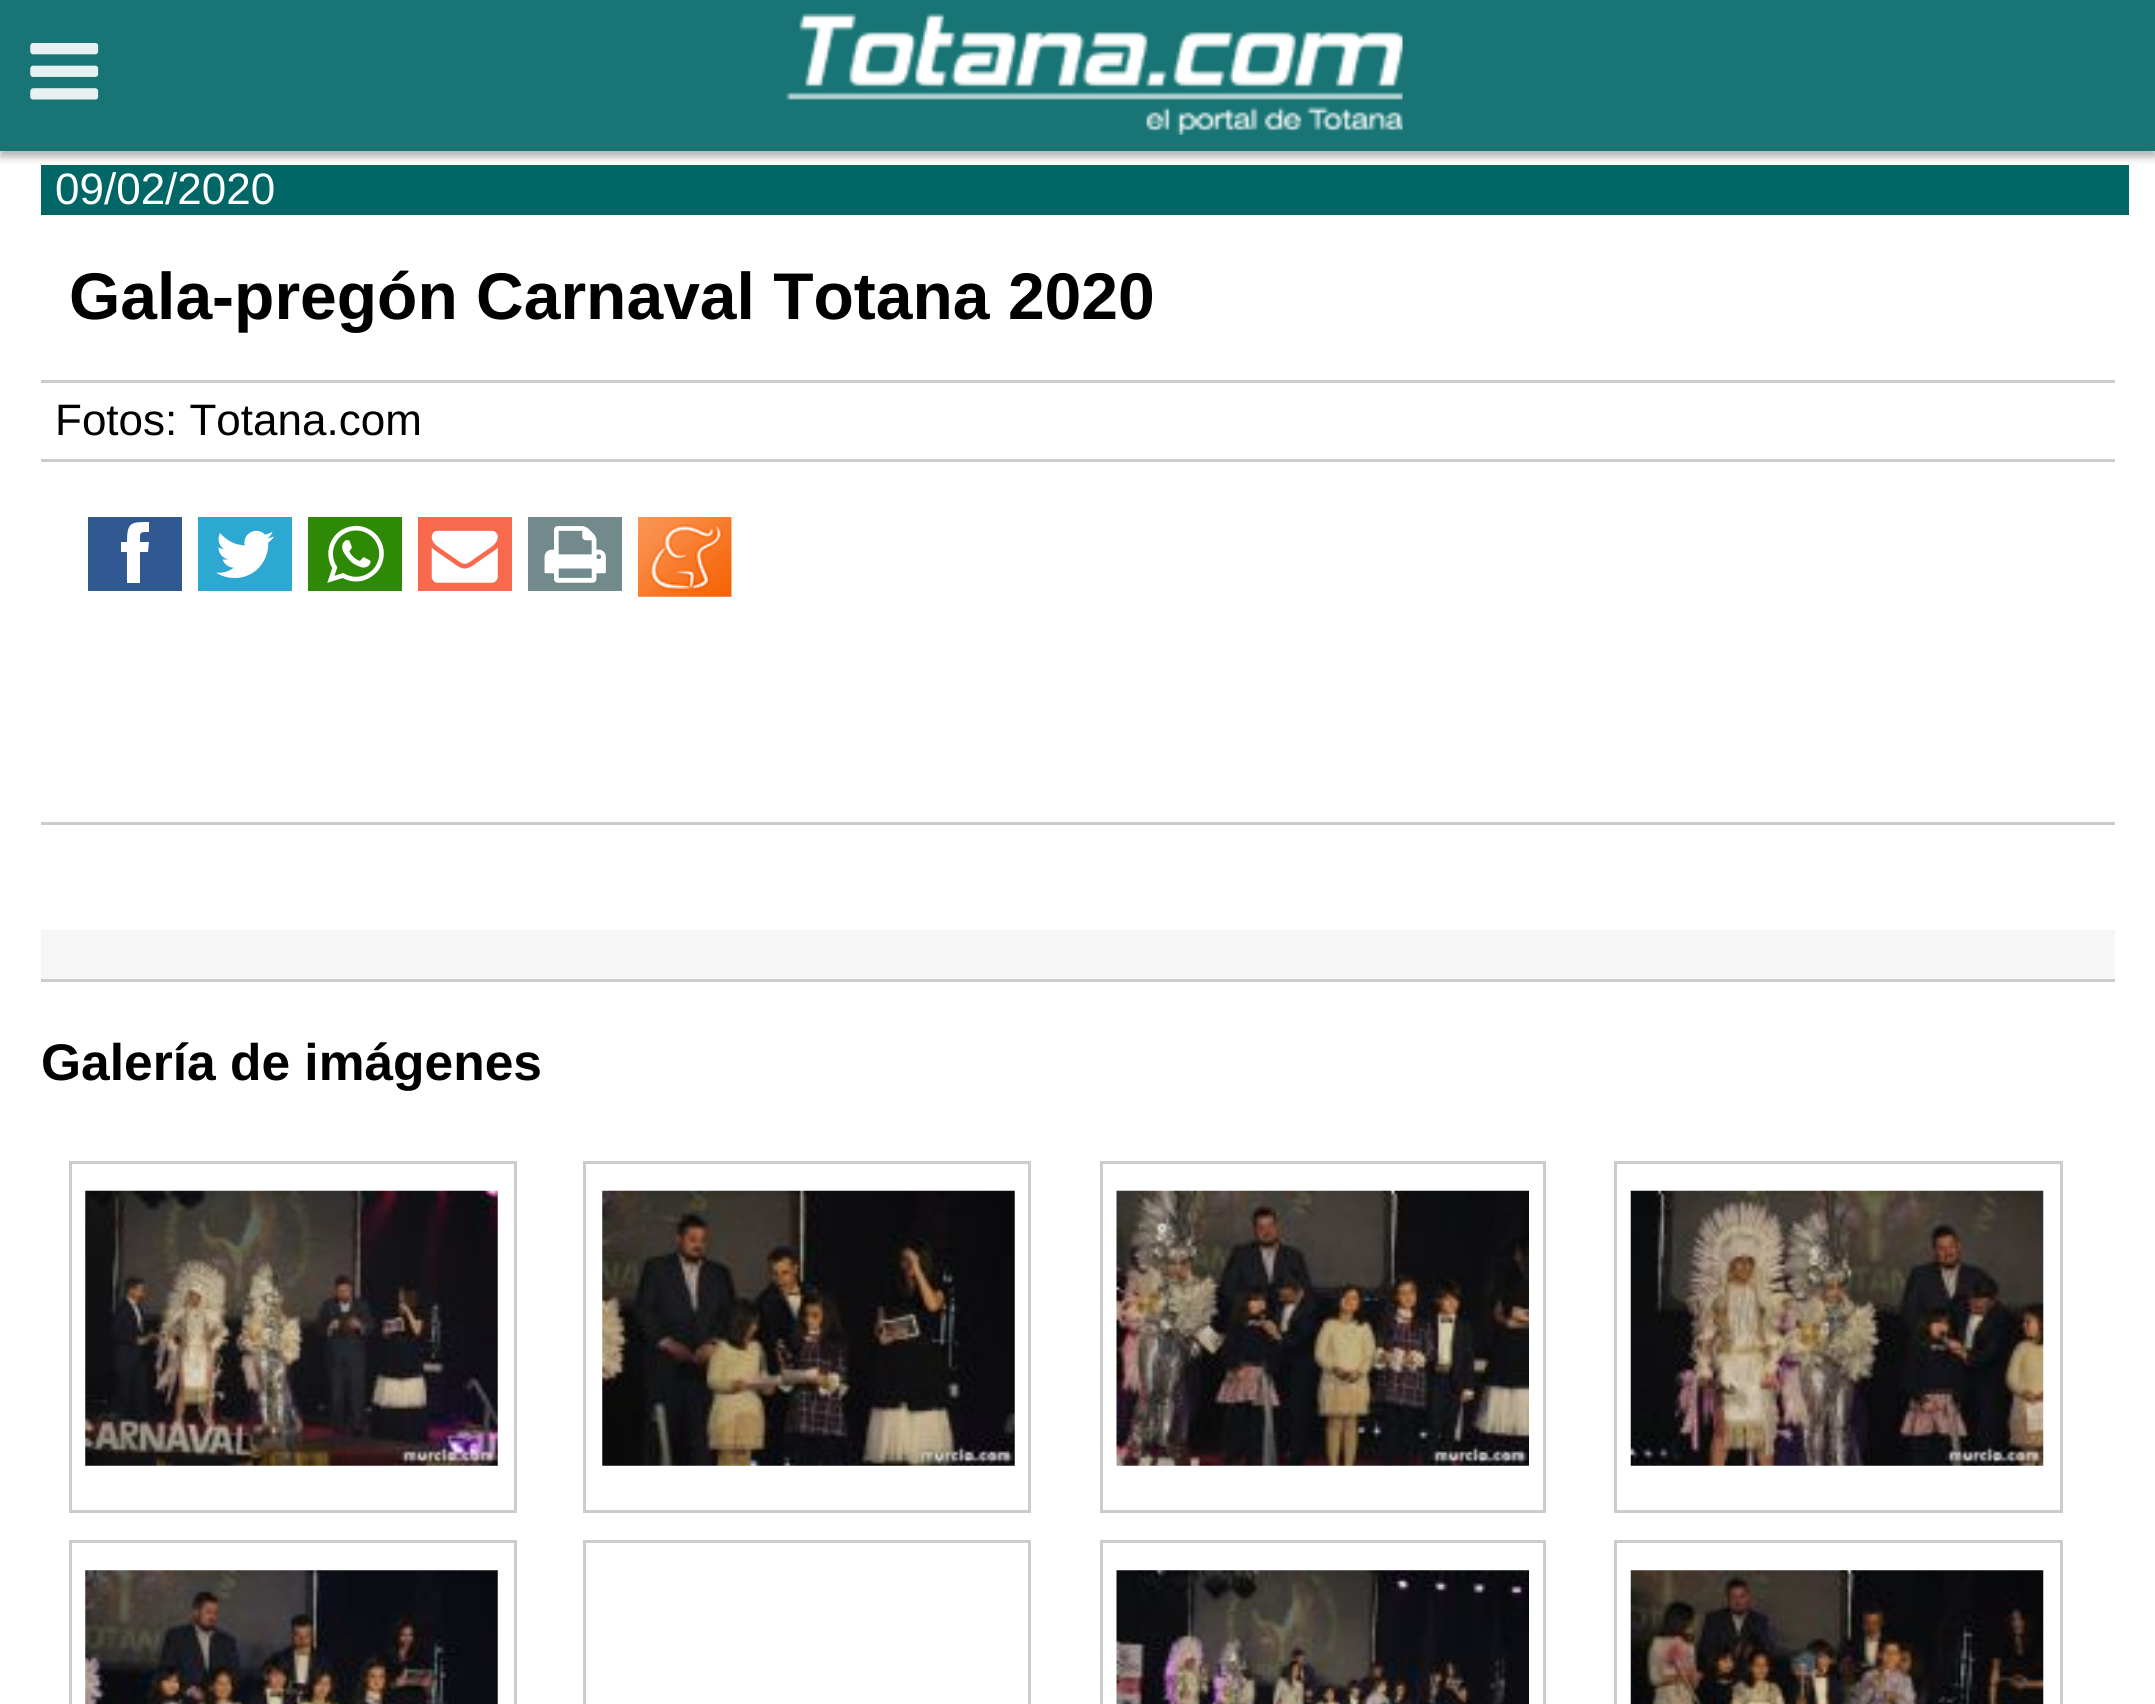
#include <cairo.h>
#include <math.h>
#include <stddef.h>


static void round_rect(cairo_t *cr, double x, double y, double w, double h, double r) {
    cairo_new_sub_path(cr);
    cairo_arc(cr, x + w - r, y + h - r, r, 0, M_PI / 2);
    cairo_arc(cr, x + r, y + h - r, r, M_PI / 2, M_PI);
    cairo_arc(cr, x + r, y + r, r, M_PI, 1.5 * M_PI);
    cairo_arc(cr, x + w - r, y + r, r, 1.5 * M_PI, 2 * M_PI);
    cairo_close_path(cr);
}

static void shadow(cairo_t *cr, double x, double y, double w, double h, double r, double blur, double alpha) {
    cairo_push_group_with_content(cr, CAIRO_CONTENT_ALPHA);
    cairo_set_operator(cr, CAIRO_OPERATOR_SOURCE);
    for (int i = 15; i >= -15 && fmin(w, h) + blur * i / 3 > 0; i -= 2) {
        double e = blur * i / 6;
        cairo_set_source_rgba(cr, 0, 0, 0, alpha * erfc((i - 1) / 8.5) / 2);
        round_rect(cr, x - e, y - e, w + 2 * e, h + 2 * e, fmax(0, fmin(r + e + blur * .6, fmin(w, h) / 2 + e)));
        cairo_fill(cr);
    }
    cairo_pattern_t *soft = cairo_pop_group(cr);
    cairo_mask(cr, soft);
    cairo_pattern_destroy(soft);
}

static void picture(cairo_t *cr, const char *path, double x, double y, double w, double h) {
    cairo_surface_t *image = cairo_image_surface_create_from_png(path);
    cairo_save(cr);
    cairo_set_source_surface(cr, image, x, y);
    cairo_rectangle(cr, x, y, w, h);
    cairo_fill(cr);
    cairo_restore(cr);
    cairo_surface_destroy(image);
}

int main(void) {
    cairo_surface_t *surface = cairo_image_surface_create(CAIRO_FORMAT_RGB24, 2155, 1704);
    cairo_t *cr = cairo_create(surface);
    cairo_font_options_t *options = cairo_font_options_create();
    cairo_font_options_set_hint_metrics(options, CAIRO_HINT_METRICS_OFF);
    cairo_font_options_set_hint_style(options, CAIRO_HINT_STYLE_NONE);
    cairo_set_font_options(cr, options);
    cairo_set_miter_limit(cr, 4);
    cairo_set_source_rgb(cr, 0.098, 0.459, 0.459);
    cairo_paint(cr);
    cairo_set_source_rgb(cr, 1, 1, 1);
    cairo_rectangle(cr, 0, 151, 2155, 1553);
    cairo_fill(cr);
    cairo_set_source_rgb(cr, 0, 0.4, 0.4);
    cairo_rectangle(cr, 41, 165, 2088, 50);
    cairo_fill(cr);
    cairo_save(cr);
    cairo_rectangle(cr, 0, 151, 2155, 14);
    cairo_clip(cr);
    cairo_set_source_rgb(cr, 0.702, 0.702, 0.702);
    shadow(cr, 0, 6, 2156, 151, 0, 4, 1);
    cairo_restore(cr);
    picture(cr, "img1.png", 30, 43, 69, 57);
    picture(cr, "img2.png", 785, 13, 618, 122);
    cairo_select_font_face(cr, "Liberation Sans", CAIRO_FONT_SLANT_NORMAL, CAIRO_FONT_WEIGHT_NORMAL);
    cairo_set_font_size(cr, 44);
    cairo_set_source_rgb(cr, 1, 1, 1);
    cairo_move_to(cr, 55, 204);
    cairo_show_text(cr, "09/02/2020");
    cairo_select_font_face(cr, "Liberation Sans", CAIRO_FONT_SLANT_NORMAL, CAIRO_FONT_WEIGHT_BOLD);
    cairo_set_font_size(cr, 66);
    cairo_set_source_rgb(cr, 0, 0, 0);
    cairo_move_to(cr, 69, 319);
    cairo_show_text(cr, "Gala-pregón Carnaval Totana 2020");
    cairo_set_source_rgb(cr, 0.8, 0.8, 0.8);
    cairo_rectangle(cr, 41, 380, 2074, 3);
    cairo_fill(cr);
    cairo_rectangle(cr, 41, 459, 2074, 3);
    cairo_fill(cr);
    cairo_select_font_face(cr, "Liberation Sans", CAIRO_FONT_SLANT_NORMAL, CAIRO_FONT_WEIGHT_NORMAL);
    cairo_set_font_size(cr, 44);
    cairo_set_source_rgb(cr, 0, 0, 0);
    cairo_move_to(cr, 55, 435);
    cairo_show_text(cr, "Fotos: Totana.com");
    cairo_set_source_rgb(cr, 0.8, 0.8, 0.8);
    cairo_rectangle(cr, 41, 822, 2074, 3);
    cairo_fill(cr);
    cairo_set_source_rgb(cr, 0.188, 0.345, 0.569);
    cairo_rectangle(cr, 88, 517, 94, 74);
    cairo_fill(cr);
    cairo_set_source_rgb(cr, 1, 1, 1);
    cairo_new_path(cr);
    cairo_move_to(cr, 140, 542);
    cairo_line_to(cr, 149, 542);
    cairo_line_to(cr, 148, 552);
    cairo_line_to(cr, 140, 552);
    cairo_line_to(cr, 140, 583);
    cairo_line_to(cr, 127, 583);
    cairo_line_to(cr, 127, 552);
    cairo_line_to(cr, 121, 552);
    cairo_line_to(cr, 121, 542);
    cairo_line_to(cr, 127, 542);
    cairo_curve_to(cr, 127, 522, 131, 522, 149, 522);
    cairo_line_to(cr, 149, 532);
    cairo_curve_to(cr, 139, 532, 140, 532, 140, 542);
    cairo_close_path(cr);
    cairo_fill(cr);
    cairo_set_source_rgb(cr, 0.173, 0.659, 0.824);
    cairo_rectangle(cr, 198, 517, 94, 74);
    cairo_fill(cr);
    picture(cr, "img3.png", 216, 530, 58, 48);
    cairo_set_source_rgb(cr, 0.18, 0.541, 0.024);
    cairo_rectangle(cr, 308, 517, 94, 74);
    cairo_fill(cr);
    picture(cr, "img4.png", 327, 525, 57, 58);
    cairo_set_source_rgb(cr, 0.973, 0.412, 0.302);
    cairo_rectangle(cr, 418, 517, 94, 74);
    cairo_fill(cr);
    picture(cr, "img5.png", 431, 530, 67, 53);
    cairo_set_source_rgb(cr, 0.451, 0.541, 0.553);
    cairo_rectangle(cr, 528, 517, 94, 74);
    cairo_fill(cr);
    picture(cr, "img6.png", 544, 526, 62, 57);
    picture(cr, "img7.png", 638, 517, 94, 80);
    cairo_set_source_rgb(cr, 0.961, 0.961, 0.961);
    cairo_rectangle(cr, 41, 930, 2074, 49);
    cairo_fill(cr);
    cairo_set_source_rgb(cr, 0.8, 0.8, 0.8);
    cairo_rectangle(cr, 41, 979, 2074, 3);
    cairo_fill(cr);
    cairo_select_font_face(cr, "Liberation Sans", CAIRO_FONT_SLANT_NORMAL, CAIRO_FONT_WEIGHT_BOLD);
    cairo_set_font_size(cr, 51.5);
    cairo_set_source_rgb(cr, 0, 0, 0);
    cairo_move_to(cr, 41, 1080);
    cairo_show_text(cr, "Galería de imágenes");
    cairo_rectangle(cr, 70.5, 1162.5, 445, 349);
    cairo_set_source_rgb(cr, 0.8, 0.8, 0.8);
    cairo_set_line_width(cr, 3);
    cairo_stroke(cr);
    picture(cr, "img8.png", 85, 1190, 413, 276);
    cairo_rectangle(cr, 584.5, 1162.5, 445, 349);
    cairo_stroke(cr);
    picture(cr, "img9.png", 602, 1190, 413, 276);
    cairo_rectangle(cr, 1101.5, 1162.5, 443, 349);
    cairo_stroke(cr);
    picture(cr, "img10.png", 1116, 1190, 413, 276);
    cairo_rectangle(cr, 1615.5, 1162.5, 446, 349);
    cairo_stroke(cr);
    picture(cr, "img11.png", 1630, 1190, 414, 276);
    cairo_rectangle(cr, 70.5, 1541.5, 445, 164);
    cairo_stroke(cr);
    picture(cr, "img12.png", 85, 1570, 413, 134);
    cairo_rectangle(cr, 584.5, 1541.5, 445, 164);
    cairo_stroke(cr);
    cairo_rectangle(cr, 1101.5, 1541.5, 443, 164);
    cairo_stroke(cr);
    picture(cr, "img13.png", 1116, 1570, 413, 134);
    cairo_rectangle(cr, 1615.5, 1541.5, 446, 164);
    cairo_stroke(cr);
    picture(cr, "img14.png", 1630, 1570, 414, 134);
    cairo_surface_write_to_png(surface, "page.png");
    cairo_font_options_destroy(options);
    cairo_destroy(cr);
    cairo_surface_destroy(surface);
    return 0;
}
